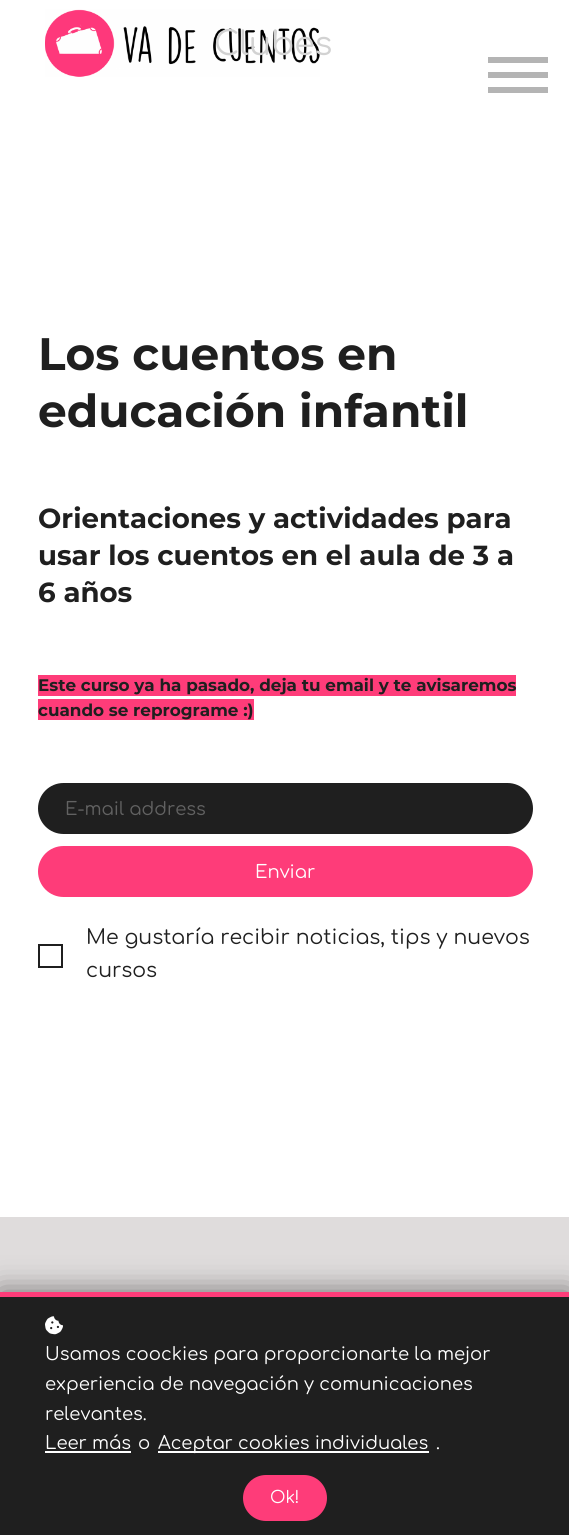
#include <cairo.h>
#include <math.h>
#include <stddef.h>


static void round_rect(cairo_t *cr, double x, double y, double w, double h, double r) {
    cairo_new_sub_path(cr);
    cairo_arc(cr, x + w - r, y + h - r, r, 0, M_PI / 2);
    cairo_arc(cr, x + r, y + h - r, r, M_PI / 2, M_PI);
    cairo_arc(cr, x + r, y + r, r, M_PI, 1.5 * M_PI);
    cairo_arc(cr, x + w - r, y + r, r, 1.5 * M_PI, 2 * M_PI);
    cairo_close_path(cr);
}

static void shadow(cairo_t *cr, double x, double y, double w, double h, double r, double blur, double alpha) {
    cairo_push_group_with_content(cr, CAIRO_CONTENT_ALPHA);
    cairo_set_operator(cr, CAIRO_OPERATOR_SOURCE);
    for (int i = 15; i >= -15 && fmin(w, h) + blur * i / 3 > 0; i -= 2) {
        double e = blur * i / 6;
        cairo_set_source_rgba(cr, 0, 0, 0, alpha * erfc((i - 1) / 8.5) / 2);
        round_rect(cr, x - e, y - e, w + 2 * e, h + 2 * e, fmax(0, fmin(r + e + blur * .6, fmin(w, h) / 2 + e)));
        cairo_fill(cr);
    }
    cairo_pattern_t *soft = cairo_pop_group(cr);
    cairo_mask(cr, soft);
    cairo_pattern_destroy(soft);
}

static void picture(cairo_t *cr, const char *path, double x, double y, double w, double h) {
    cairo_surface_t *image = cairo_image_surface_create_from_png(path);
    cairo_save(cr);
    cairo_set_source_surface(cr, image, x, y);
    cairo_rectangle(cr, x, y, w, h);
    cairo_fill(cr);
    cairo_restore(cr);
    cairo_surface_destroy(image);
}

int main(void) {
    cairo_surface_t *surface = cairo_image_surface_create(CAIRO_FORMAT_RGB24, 569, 1535);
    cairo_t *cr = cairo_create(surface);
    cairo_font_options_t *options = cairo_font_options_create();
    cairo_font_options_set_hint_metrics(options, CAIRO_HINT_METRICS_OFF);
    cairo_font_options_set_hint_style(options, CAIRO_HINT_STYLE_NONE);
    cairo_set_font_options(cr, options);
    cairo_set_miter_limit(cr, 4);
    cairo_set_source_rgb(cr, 1, 1, 1);
    cairo_paint(cr);
    picture(cr, "img1.png", 45, 9, 275, 68);
    cairo_select_font_face(cr, "Comfortaa", CAIRO_FONT_SLANT_NORMAL, CAIRO_FONT_WEIGHT_NORMAL);
    cairo_set_font_size(cr, 33);
    cairo_set_source_rgb(cr, 0.824, 0.824, 0.824);
    cairo_move_to(cr, 214, 55);
    cairo_show_text(cr, "Clubes");
    cairo_set_source_rgb(cr, 0.706, 0.706, 0.706);
    cairo_rectangle(cr, 488, 87, 60, 6);
    cairo_fill(cr);
    cairo_rectangle(cr, 488, 57, 60, 6);
    cairo_fill(cr);
    cairo_rectangle(cr, 488, 72, 60, 6);
    cairo_fill(cr);
    cairo_select_font_face(cr, "Montserrat", CAIRO_FONT_SLANT_NORMAL, CAIRO_FONT_WEIGHT_BOLD);
    cairo_set_font_size(cr, 45.5);
    cairo_set_source_rgb(cr, 0.122, 0.122, 0.122);
    cairo_move_to(cr, 38, 370);
    cairo_show_text(cr, "Los cuentos en");
    cairo_move_to(cr, 38, 427);
    cairo_show_text(cr, "educación infantil");
    cairo_set_font_size(cr, 27.6);
    cairo_move_to(cr, 38, 528);
    cairo_show_text(cr, "Orientaciones y actividades para");
    cairo_move_to(cr, 38, 565);
    cairo_show_text(cr, "usar los cuentos en el aula de 3 a");
    cairo_move_to(cr, 38, 602);
    cairo_show_text(cr, "6 años");
    cairo_set_source_rgb(cr, 0.996, 0.235, 0.475);
    cairo_rectangle(cr, 38, 675, 478, 21);
    cairo_fill(cr);
    cairo_set_font_size(cr, 16.8);
    cairo_set_source_rgb(cr, 0.122, 0.122, 0.122);
    cairo_move_to(cr, 38, 691);
    cairo_show_text(cr, "Este curso ya ha pasado, deja tu email y te avisaremos");
    cairo_set_source_rgb(cr, 0.996, 0.235, 0.475);
    cairo_rectangle(cr, 38, 699, 216, 21);
    cairo_fill(cr);
    cairo_set_source_rgb(cr, 0.122, 0.122, 0.122);
    cairo_move_to(cr, 38, 716);
    cairo_show_text(cr, "cuando se reprograme :)");
    round_rect(cr, 39.5, 784.5, 492, 48, 24);
    cairo_fill_preserve(cr);
    cairo_set_line_width(cr, 3);
    cairo_stroke(cr);
    cairo_select_font_face(cr, "Comfortaa", CAIRO_FONT_SLANT_NORMAL, CAIRO_FONT_WEIGHT_NORMAL);
    cairo_set_font_size(cr, 18);
    cairo_set_source_rgb(cr, 0.384, 0.384, 0.384);
    cairo_move_to(cr, 65, 815);
    cairo_show_text(cr, "E-mail address");
    cairo_set_source_rgb(cr, 0.996, 0.235, 0.475);
    round_rect(cr, 38, 846, 495, 51, 25.5);
    cairo_fill(cr);
    cairo_set_source_rgb(cr, 1, 1, 1);
    cairo_move_to(cr, 255, 878);
    cairo_show_text(cr, "Enviar");
    cairo_rectangle(cr, 39, 945, 23, 22);
    cairo_set_source_rgb(cr, 0.122, 0.122, 0.122);
    cairo_set_line_width(cr, 2);
    cairo_stroke(cr);
    cairo_set_font_size(cr, 20.4);
    cairo_move_to(cr, 86, 944);
    cairo_show_text(cr, "Me gustaría recibir noticias, tips y nuevos");
    cairo_move_to(cr, 86, 977);
    cairo_show_text(cr, "cursos");
    cairo_set_source_rgb(cr, 0.875, 0.863, 0.863);
    cairo_rectangle(cr, 0, 1217, 569, 75);
    cairo_fill(cr);
    cairo_set_source_rgb(cr, 0, 0, 0);
    shadow(cr, 0, 1292, 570, 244, 0, 15, 0.5);
    cairo_set_source_rgb(cr, 0.122, 0.122, 0.122);
    cairo_rectangle(cr, 0, 1297, 569, 238);
    cairo_fill(cr);
    cairo_set_source_rgb(cr, 0.996, 0.235, 0.475);
    cairo_rectangle(cr, 0, 1292, 569, 5);
    cairo_fill(cr);
    picture(cr, "img2.png", 45, 1316, 18, 19);
    cairo_set_font_size(cr, 18);
    cairo_set_source_rgb(cr, 1, 1, 1);
    cairo_move_to(cr, 45, 1360);
    cairo_show_text(cr, "Usamos coockies para proporcionarte la mejor");
    cairo_move_to(cr, 45, 1390);
    cairo_show_text(cr, "experiencia de navegación y comunicaciones");
    cairo_move_to(cr, 45, 1420);
    cairo_show_text(cr, "relevantes.");
    cairo_move_to(cr, 45, 1449);
    cairo_show_text(cr, "Leer más");
    cairo_rectangle(cr, 45, 1451, 86, 2);
    cairo_fill(cr);
    cairo_move_to(cr, 138, 1449);
    cairo_show_text(cr, "o");
    cairo_rectangle(cr, 158, 1451, 271, 2);
    cairo_fill(cr);
    cairo_move_to(cr, 158, 1449);
    cairo_show_text(cr, "Aceptar cookies individuales");
    cairo_move_to(cr, 436, 1449);
    cairo_show_text(cr, ".");
    cairo_set_source_rgb(cr, 0.996, 0.235, 0.475);
    round_rect(cr, 243, 1475, 84, 46, 23);
    cairo_fill(cr);
    cairo_set_font_size(cr, 16.8);
    cairo_set_source_rgb(cr, 1, 1, 1);
    cairo_move_to(cr, 270, 1503);
    cairo_show_text(cr, "Ok!");
    cairo_surface_write_to_png(surface, "page.png");
    cairo_font_options_destroy(options);
    cairo_destroy(cr);
    cairo_surface_destroy(surface);
    return 0;
}
